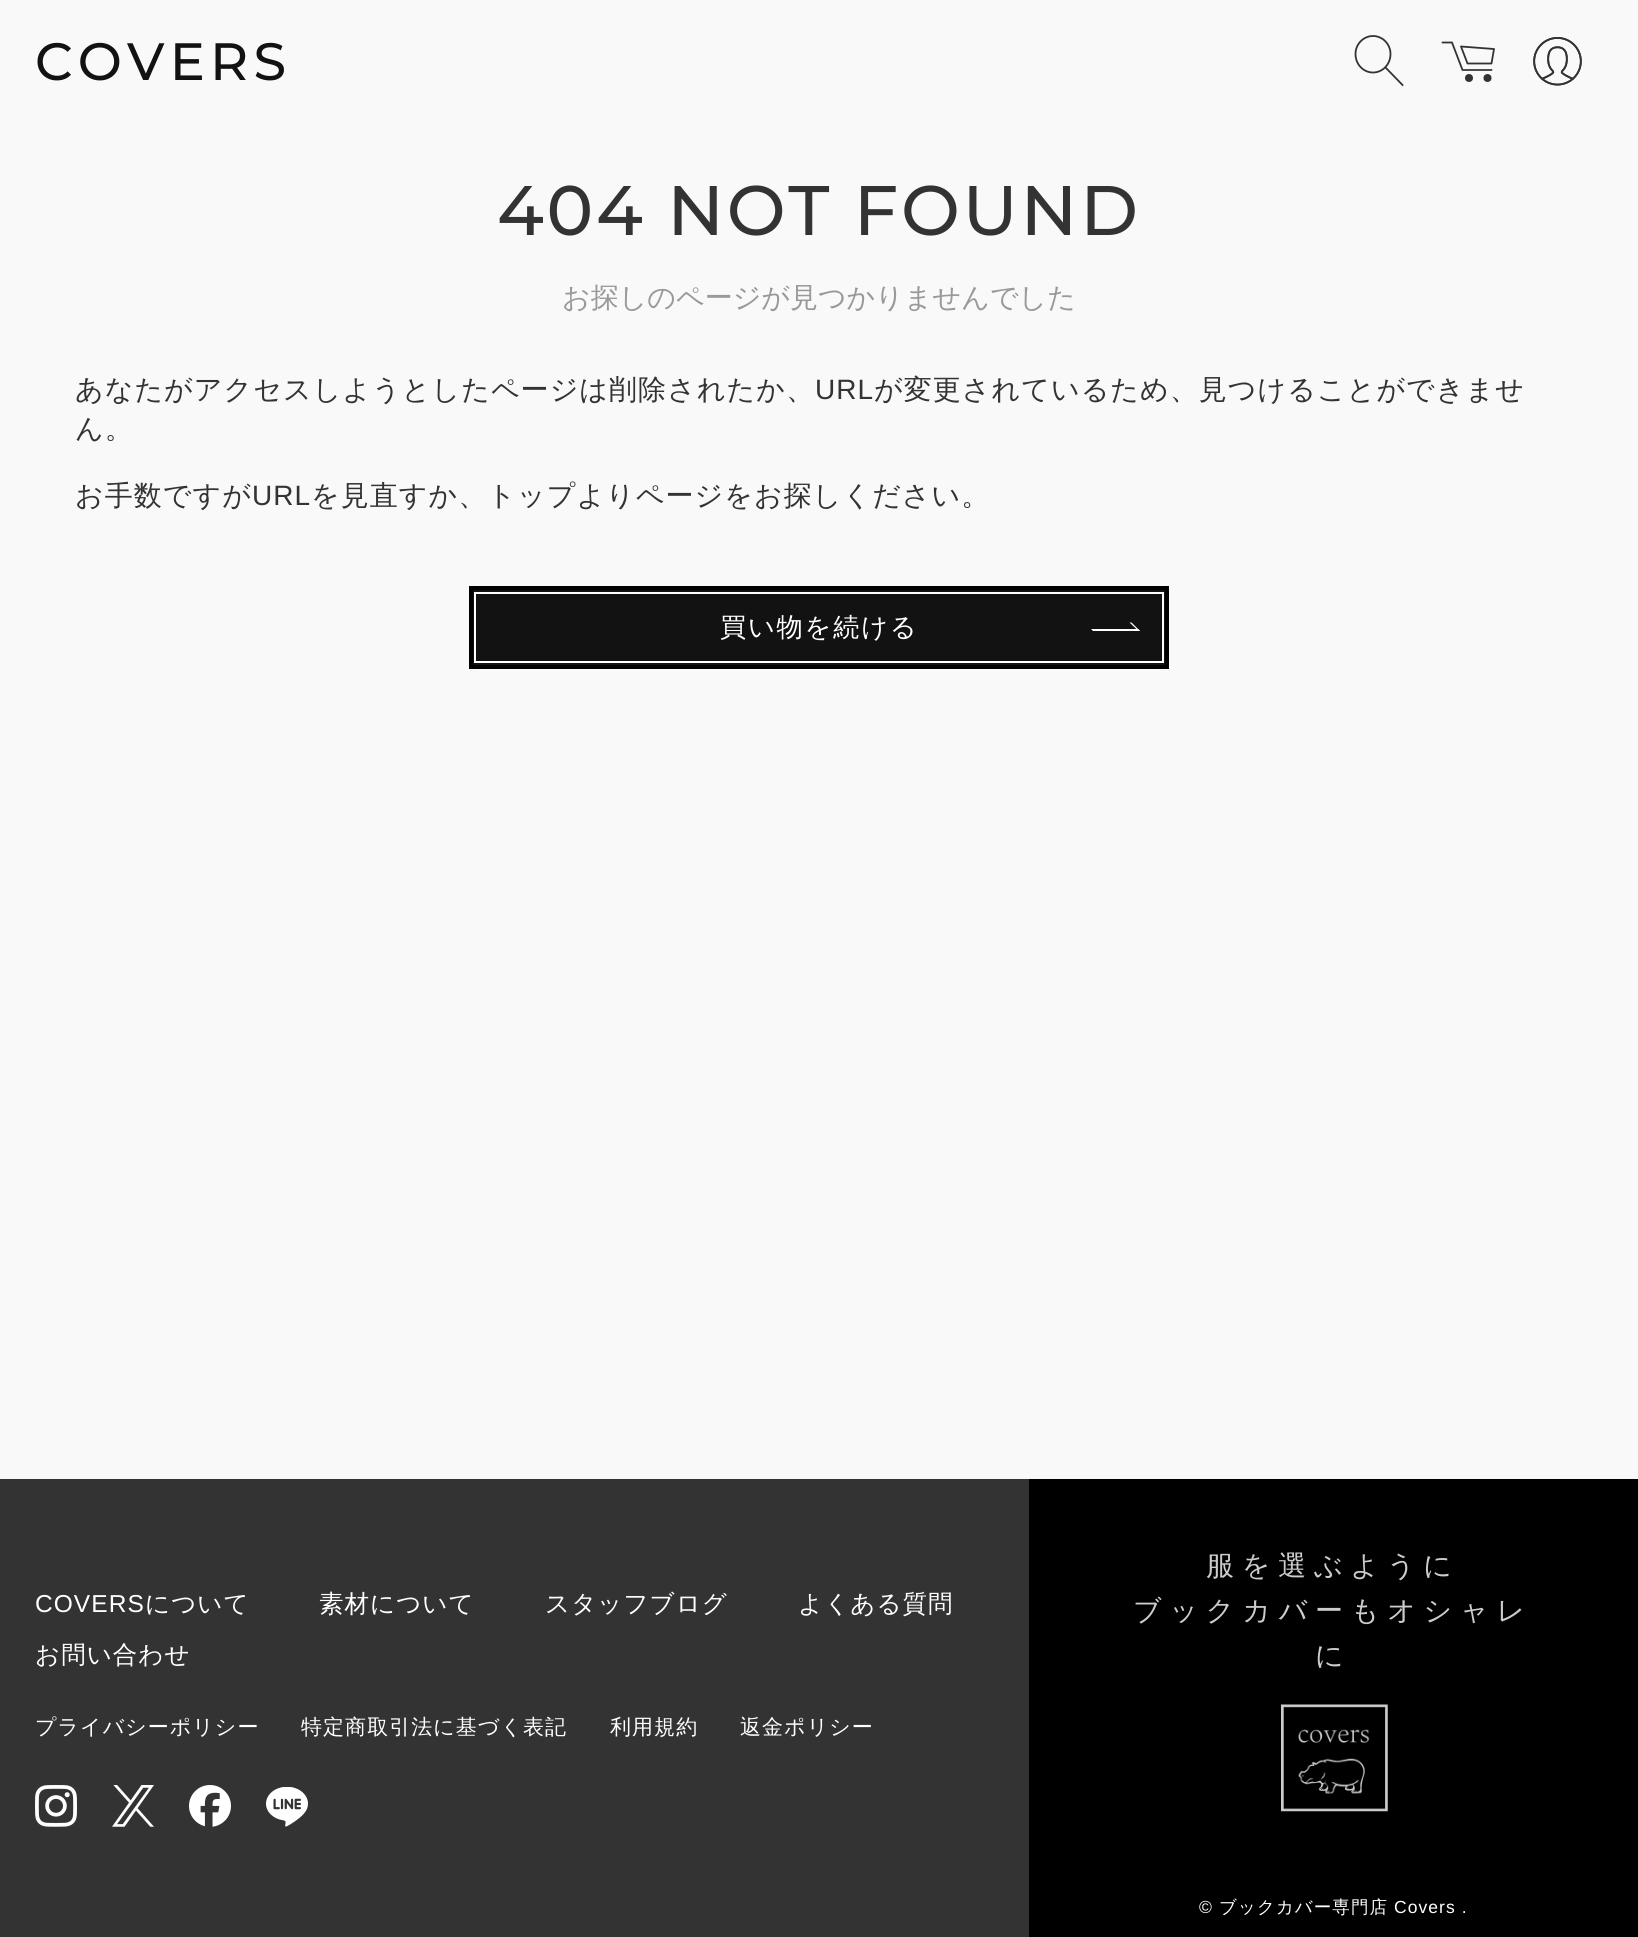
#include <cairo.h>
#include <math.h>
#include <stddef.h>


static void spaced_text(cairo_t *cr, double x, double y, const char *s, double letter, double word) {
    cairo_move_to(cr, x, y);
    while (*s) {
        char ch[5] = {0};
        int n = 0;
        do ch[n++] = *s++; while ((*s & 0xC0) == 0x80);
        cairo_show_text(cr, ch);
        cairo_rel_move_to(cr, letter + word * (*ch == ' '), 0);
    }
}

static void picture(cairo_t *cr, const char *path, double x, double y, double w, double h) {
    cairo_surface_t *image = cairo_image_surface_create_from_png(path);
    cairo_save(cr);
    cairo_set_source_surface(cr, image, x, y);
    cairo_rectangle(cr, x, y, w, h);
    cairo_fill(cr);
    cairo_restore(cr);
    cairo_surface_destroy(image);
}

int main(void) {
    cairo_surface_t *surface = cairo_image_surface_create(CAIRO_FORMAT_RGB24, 1638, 1937);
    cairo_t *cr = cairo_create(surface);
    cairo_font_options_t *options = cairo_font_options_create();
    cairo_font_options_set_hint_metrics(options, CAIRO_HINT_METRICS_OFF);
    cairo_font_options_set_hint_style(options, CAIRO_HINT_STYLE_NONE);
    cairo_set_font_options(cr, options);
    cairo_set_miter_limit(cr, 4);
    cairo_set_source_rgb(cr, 0.973, 0.973, 0.973);
    cairo_paint(cr);
    cairo_select_font_face(cr, "Montserrat Medium", CAIRO_FONT_SLANT_NORMAL, CAIRO_FONT_WEIGHT_NORMAL);
    cairo_set_font_size(cr, 52.5);
    cairo_set_source_rgb(cr, 0.071, 0.071, 0.071);
    spaced_text(cr, 35, 80, "COVERS", 5.25, 0);
    cairo_new_path(cr);
    cairo_move_to(cr, 1386, 68);
    cairo_line_to(cr, 1402.5, 85);
    cairo_move_to(cr, 1373, 72.5);
    cairo_curve_to(cr, 1382.5, 72.5, 1390.5, 64.5, 1390.5, 54);
    cairo_curve_to(cr, 1390.5, 44, 1382.5, 36, 1373, 36);
    cairo_curve_to(cr, 1363.5, 36, 1355.5, 44, 1355.5, 54);
    cairo_curve_to(cr, 1355.5, 64.5, 1363.5, 72.5, 1373, 72.5);
    cairo_close_path(cr);
    cairo_set_source_rgb(cr, 0.2, 0.2, 0.2);
    cairo_set_line_width(cr, 1.8);
    cairo_set_line_cap(cr, CAIRO_LINE_CAP_SQUARE);
    cairo_stroke(cr);
    cairo_new_path(cr);
    cairo_move_to(cr, 1442.5, 42.5);
    cairo_line_to(cr, 1452, 42.5);
    cairo_line_to(cr, 1462.5, 70);
    cairo_line_to(cr, 1491.5, 70);
    cairo_move_to(cr, 1467.5, 63.5);
    cairo_line_to(cr, 1461, 46.5);
    cairo_line_to(cr, 1494, 49);
    cairo_line_to(cr, 1491.5, 63.5);
    cairo_close_path(cr);
    cairo_set_line_cap(cr, CAIRO_LINE_CAP_ROUND);
    cairo_set_line_join(cr, CAIRO_LINE_JOIN_ROUND);
    cairo_stroke(cr);
    cairo_arc(cr, 1469, 78, 4, 0, 2 * M_PI);
    cairo_fill(cr);
    cairo_arc(cr, 1487.5, 78, 4, 0, 2 * M_PI);
    cairo_fill(cr);
    picture(cr, "img1.png", 1533, 37, 49, 49);
    cairo_set_font_size(cr, 70);
    spaced_text(cr, 497, 235, "404 NOT FOUND", 2.75, 0);
    cairo_select_font_face(cr, "WenQuanYi Zen Hei Medium", CAIRO_FONT_SLANT_NORMAL, CAIRO_FONT_WEIGHT_NORMAL);
    cairo_set_font_size(cr, 28);
    cairo_set_source_rgb(cr, 0.6, 0.6, 0.6);
    cairo_move_to(cr, 562, 307);
    cairo_show_text(cr, "お探しのページが見つかりませんでした");
    cairo_set_source_rgb(cr, 0.2, 0.2, 0.2);
    spaced_text(cr, 75, 399, "あなたがアクセスしようとしたページは削除されたか、", 1.05, 0);
    cairo_select_font_face(cr, "Liberation Sans", CAIRO_FONT_SLANT_NORMAL, CAIRO_FONT_WEIGHT_NORMAL);
    spaced_text(cr, 815, 399, "URL", 1.05, 0);
    cairo_select_font_face(cr, "WenQuanYi Zen Hei Medium", CAIRO_FONT_SLANT_NORMAL, CAIRO_FONT_WEIGHT_NORMAL);
    spaced_text(cr, 874, 399, "が変更されているため、見つけることができませ", 1.05, 0);
    spaced_text(cr, 75, 438, "ん。", 1.05, 0);
    spaced_text(cr, 75, 505, "お手数ですが", 1.05, 0);
    cairo_select_font_face(cr, "Liberation Sans", CAIRO_FONT_SLANT_NORMAL, CAIRO_FONT_WEIGHT_NORMAL);
    spaced_text(cr, 252, 505, "URL", 1.05, 0);
    cairo_select_font_face(cr, "WenQuanYi Zen Hei Medium", CAIRO_FONT_SLANT_NORMAL, CAIRO_FONT_WEIGHT_NORMAL);
    spaced_text(cr, 311, 505, "を見直すか、トップよりページをお探しください。", 1.05, 0);
    cairo_set_source_rgb(cr, 0.071, 0.071, 0.071);
    cairo_rectangle(cr, 471, 588, 696, 79);
    cairo_fill_preserve(cr);
    cairo_set_source_rgb(cr, 0, 0, 0);
    cairo_set_line_width(cr, 4);
    cairo_set_line_cap(cr, CAIRO_LINE_CAP_BUTT);
    cairo_set_line_join(cr, CAIRO_LINE_JOIN_MITER);
    cairo_stroke(cr);
    cairo_rectangle(cr, 475, 593, 688, 69);
    cairo_set_source_rgb(cr, 1, 1, 1);
    cairo_set_line_width(cr, 2);
    cairo_stroke(cr);
    cairo_set_font_size(cr, 26.25);
    spaced_text(cr, 720, 636, "買い物を続ける", 1.75, 0);
    cairo_new_path(cr);
    cairo_move_to(cr, 1129.5, 622.5);
    cairo_line_to(cr, 1131.5, 622.5);
    cairo_line_to(cr, 1140, 631);
    cairo_line_to(cr, 1138.5, 631);
    cairo_close_path(cr);
    cairo_fill(cr);
    cairo_new_path(cr);
    cairo_move_to(cr, 1091, 629);
    cairo_line_to(cr, 1138, 629);
    cairo_line_to(cr, 1140, 631);
    cairo_line_to(cr, 1093, 631);
    cairo_close_path(cr);
    cairo_fill(cr);
    cairo_set_source_rgb(cr, 0.2, 0.2, 0.2);
    cairo_rectangle(cr, 0, 1479, 1029, 458);
    cairo_fill(cr);
    cairo_select_font_face(cr, "Liberation Sans", CAIRO_FONT_SLANT_NORMAL, CAIRO_FONT_WEIGHT_NORMAL);
    cairo_set_font_size(cr, 24.5);
    cairo_set_source_rgb(cr, 1, 1, 1);
    spaced_text(cr, 35, 1612, "COVERS", 1.05, 0);
    cairo_select_font_face(cr, "WenQuanYi Zen Hei Medium", CAIRO_FONT_SLANT_NORMAL, CAIRO_FONT_WEIGHT_NORMAL);
    spaced_text(cr, 145, 1612, "について", 1.05, 0);
    spaced_text(cr, 319, 1612, "素材について", 1.05, 0);
    spaced_text(cr, 545, 1612, "スタッフブログ", 1.05, 0);
    spaced_text(cr, 798, 1612, "よくある質問", 1.05, 0);
    spaced_text(cr, 35, 1663, "お問い合わせ", 1.05, 0);
    cairo_set_font_size(cr, 21);
    spaced_text(cr, 35, 1734, "プライバシーポリシー", 1.05, 0);
    spaced_text(cr, 301, 1734, "特定商取引法に基づく表記", 1.05, 0);
    spaced_text(cr, 610, 1734, "利用規約", 1.05, 0);
    spaced_text(cr, 740, 1734, "返金ポリシー", 1.05, 0);
    picture(cr, "img2.png", 35, 1785, 42, 42);
    picture(cr, "img3.png", 112, 1785, 42, 42);
    picture(cr, "img4.png", 189, 1785, 42, 42);
    picture(cr, "img5.png", 266, 1787, 42, 40);
    cairo_set_source_rgb(cr, 0, 0, 0);
    cairo_rectangle(cr, 1029, 1479, 609, 458);
    cairo_fill(cr);
    cairo_set_font_size(cr, 28);
    cairo_set_source_rgb(cr, 0.8, 0.8, 0.8);
    spaced_text(cr, 1206, 1575, "服を選ぶように", 7.75, 0);
    spaced_text(cr, 1133, 1620, "ブックカバーもオシャレ", 7.75, 0);
    spaced_text(cr, 1315, 1665, "に", 7.75, 0);
    picture(cr, "img6.png", 1281, 1704, 107, 108);
    cairo_select_font_face(cr, "Liberation Sans", CAIRO_FONT_SLANT_NORMAL, CAIRO_FONT_WEIGHT_NORMAL);
    cairo_set_font_size(cr, 17.5);
    cairo_set_source_rgb(cr, 1, 1, 1);
    spaced_text(cr, 1199, 1913, "©", 1.05, 0);
    cairo_select_font_face(cr, "WenQuanYi Zen Hei Medium", CAIRO_FONT_SLANT_NORMAL, CAIRO_FONT_WEIGHT_NORMAL);
    spaced_text(cr, 1219, 1913, "ブックカバー専門店", 1.05, 0);
    cairo_select_font_face(cr, "Liberation Sans", CAIRO_FONT_SLANT_NORMAL, CAIRO_FONT_WEIGHT_NORMAL);
    spaced_text(cr, 1394, 1913, "Covers .", 1.05, 0);
    cairo_surface_write_to_png(surface, "page.png");
    cairo_font_options_destroy(options);
    cairo_destroy(cr);
    cairo_surface_destroy(surface);
    return 0;
}
